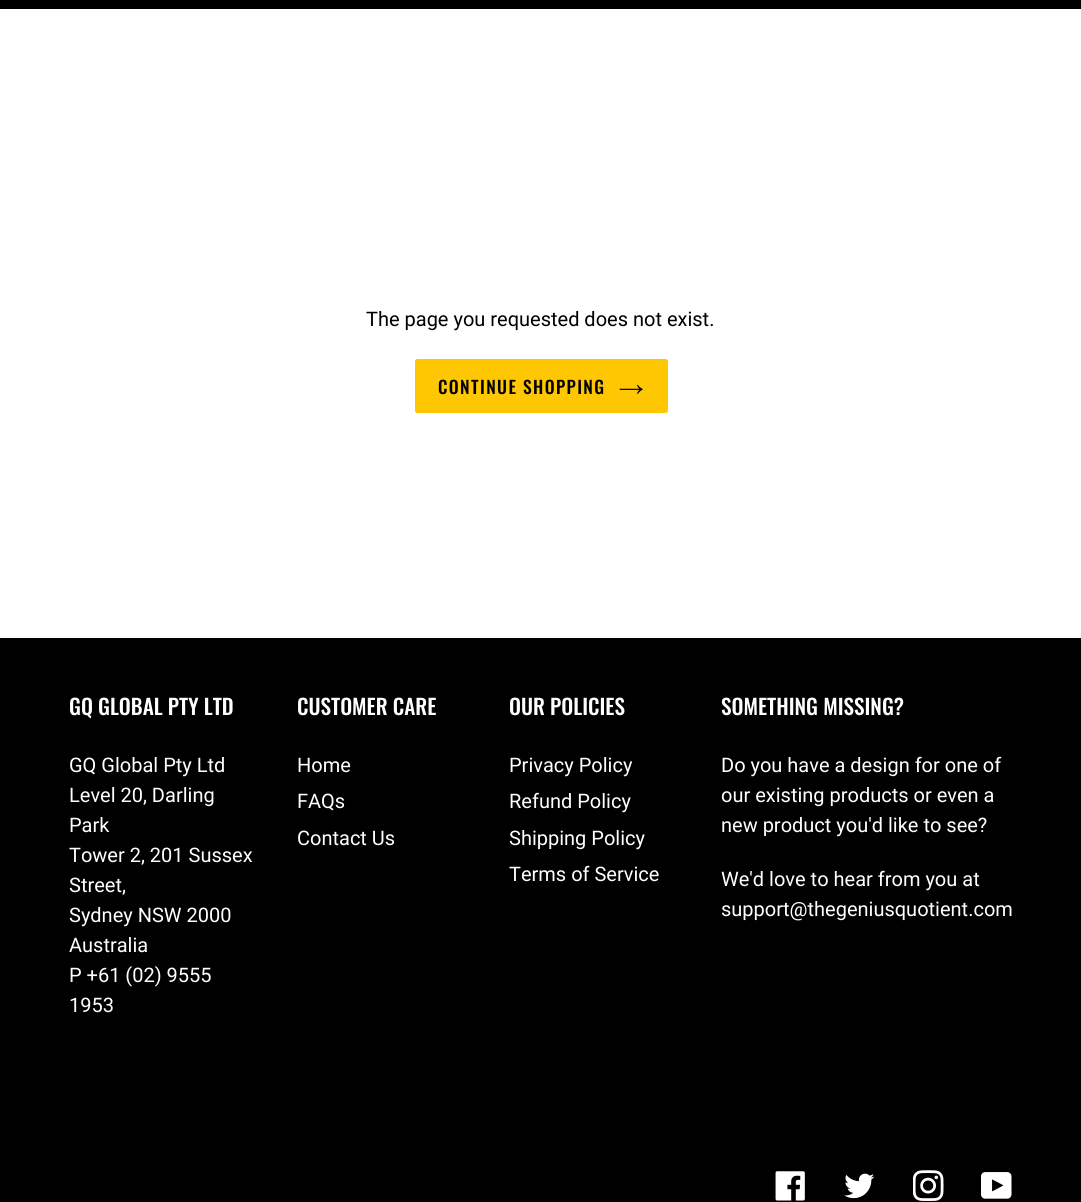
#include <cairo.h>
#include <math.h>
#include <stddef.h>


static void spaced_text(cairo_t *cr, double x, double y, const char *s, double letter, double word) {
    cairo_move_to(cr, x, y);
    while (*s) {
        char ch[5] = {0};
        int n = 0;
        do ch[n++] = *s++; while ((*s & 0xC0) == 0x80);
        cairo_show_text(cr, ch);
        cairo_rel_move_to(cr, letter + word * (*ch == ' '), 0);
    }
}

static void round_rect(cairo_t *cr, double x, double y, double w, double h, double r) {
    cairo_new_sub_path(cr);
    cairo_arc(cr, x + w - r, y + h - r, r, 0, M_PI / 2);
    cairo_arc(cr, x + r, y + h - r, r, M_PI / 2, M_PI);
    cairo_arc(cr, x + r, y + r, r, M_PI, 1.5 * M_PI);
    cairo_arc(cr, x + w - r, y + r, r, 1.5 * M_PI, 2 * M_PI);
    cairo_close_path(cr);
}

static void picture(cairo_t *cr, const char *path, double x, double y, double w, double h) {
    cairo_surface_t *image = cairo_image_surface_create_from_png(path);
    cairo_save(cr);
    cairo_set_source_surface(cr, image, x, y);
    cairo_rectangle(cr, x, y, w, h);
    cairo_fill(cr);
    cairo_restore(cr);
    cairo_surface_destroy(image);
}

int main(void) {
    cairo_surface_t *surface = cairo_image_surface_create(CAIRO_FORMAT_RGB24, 1081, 1202);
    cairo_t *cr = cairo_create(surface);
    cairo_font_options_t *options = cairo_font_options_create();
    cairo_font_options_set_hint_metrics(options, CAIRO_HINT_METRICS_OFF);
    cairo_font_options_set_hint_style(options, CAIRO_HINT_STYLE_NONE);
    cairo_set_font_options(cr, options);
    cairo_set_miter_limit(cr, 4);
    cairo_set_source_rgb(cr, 1, 1, 1);
    cairo_paint(cr);
    cairo_set_source_rgb(cr, 0, 0, 0);
    cairo_rectangle(cr, 0, 0, 1081, 9);
    cairo_fill(cr);
    cairo_select_font_face(cr, "Roboto", CAIRO_FONT_SLANT_NORMAL, CAIRO_FONT_WEIGHT_NORMAL);
    cairo_set_font_size(cr, 20);
    cairo_move_to(cr, 366, 326);
    cairo_show_text(cr, "The page you requested does not exist.");
    cairo_set_source_rgb(cr, 1, 0.776, 0.008);
    round_rect(cr, 415, 359, 253, 54, 2.5);
    cairo_fill(cr);
    cairo_select_font_face(cr, "Oswald Medium", CAIRO_FONT_SLANT_NORMAL, CAIRO_FONT_WEIGHT_NORMAL);
    cairo_set_font_size(cr, 17.5);
    cairo_set_source_rgb(cr, 0, 0, 0);
    spaced_text(cr, 438, 394, "CONTINUE SHOPPING", 1.4, 0);
    picture(cr, "img1.png", 619, 384, 24, 10);
    cairo_rectangle(cr, 0, 638, 1081, 564);
    cairo_fill(cr);
    cairo_set_font_size(cr, 21.25);
    cairo_set_source_rgb(cr, 1, 1, 1);
    cairo_move_to(cr, 69, 715);
    cairo_show_text(cr, "GQ GLOBAL PTY LTD");
    cairo_select_font_face(cr, "Roboto", CAIRO_FONT_SLANT_NORMAL, CAIRO_FONT_WEIGHT_NORMAL);
    cairo_set_font_size(cr, 20);
    cairo_move_to(cr, 69, 772);
    cairo_show_text(cr, "GQ Global Pty Ltd");
    cairo_move_to(cr, 69, 802);
    cairo_show_text(cr, "Level 20, Darling");
    cairo_move_to(cr, 69, 832);
    cairo_show_text(cr, "Park");
    cairo_move_to(cr, 69, 862);
    cairo_show_text(cr, "Tower 2, 201 Sussex");
    cairo_move_to(cr, 69, 892);
    cairo_show_text(cr, "Street,");
    cairo_move_to(cr, 69, 922);
    cairo_show_text(cr, "Sydney NSW 2000");
    cairo_move_to(cr, 69, 952);
    cairo_show_text(cr, "Australia");
    cairo_move_to(cr, 69, 982);
    cairo_show_text(cr, "P +61 (02) 9555");
    cairo_move_to(cr, 69, 1012);
    cairo_show_text(cr, "1953");
    cairo_select_font_face(cr, "Oswald Medium", CAIRO_FONT_SLANT_NORMAL, CAIRO_FONT_WEIGHT_NORMAL);
    cairo_set_font_size(cr, 21.25);
    cairo_move_to(cr, 297, 715);
    cairo_show_text(cr, "CUSTOMER CARE");
    cairo_select_font_face(cr, "Roboto", CAIRO_FONT_SLANT_NORMAL, CAIRO_FONT_WEIGHT_NORMAL);
    cairo_set_font_size(cr, 20);
    cairo_move_to(cr, 297, 772);
    cairo_show_text(cr, "Home");
    cairo_move_to(cr, 297, 808);
    cairo_show_text(cr, "FAQs");
    cairo_move_to(cr, 297, 845);
    cairo_show_text(cr, "Contact Us");
    cairo_select_font_face(cr, "Oswald Medium", CAIRO_FONT_SLANT_NORMAL, CAIRO_FONT_WEIGHT_NORMAL);
    cairo_set_font_size(cr, 21.25);
    cairo_move_to(cr, 509, 715);
    cairo_show_text(cr, "OUR POLICIES");
    cairo_select_font_face(cr, "Roboto", CAIRO_FONT_SLANT_NORMAL, CAIRO_FONT_WEIGHT_NORMAL);
    cairo_set_font_size(cr, 20);
    cairo_move_to(cr, 509, 772);
    cairo_show_text(cr, "Privacy Policy");
    cairo_move_to(cr, 509, 808);
    cairo_show_text(cr, "Refund Policy");
    cairo_move_to(cr, 509, 845);
    cairo_show_text(cr, "Shipping Policy");
    cairo_move_to(cr, 509, 881);
    cairo_show_text(cr, "Terms of Service");
    cairo_select_font_face(cr, "Oswald Medium", CAIRO_FONT_SLANT_NORMAL, CAIRO_FONT_WEIGHT_NORMAL);
    cairo_set_font_size(cr, 21.25);
    cairo_move_to(cr, 721, 715);
    cairo_show_text(cr, "SOMETHING MISSING?");
    cairo_select_font_face(cr, "Roboto", CAIRO_FONT_SLANT_NORMAL, CAIRO_FONT_WEIGHT_NORMAL);
    cairo_set_font_size(cr, 20);
    cairo_move_to(cr, 721, 772);
    cairo_show_text(cr, "Do you have a design for one of");
    cairo_move_to(cr, 721, 802);
    cairo_show_text(cr, "our existing products or even a");
    cairo_move_to(cr, 721, 832);
    cairo_show_text(cr, "new product you'd like to see?");
    cairo_move_to(cr, 721, 886);
    cairo_show_text(cr, "We'd love to hear from you at");
    cairo_move_to(cr, 721, 916);
    cairo_show_text(cr, "support@thegeniusquotient.com");
    picture(cr, "img2.png", 775, 1171, 30, 30);
    picture(cr, "img3.png", 844, 1173, 31, 26);
    picture(cr, "img4.png", 913, 1170, 31, 31);
    picture(cr, "img5.png", 981, 1172, 31, 27);
    cairo_surface_write_to_png(surface, "page.png");
    cairo_font_options_destroy(options);
    cairo_destroy(cr);
    cairo_surface_destroy(surface);
    return 0;
}
